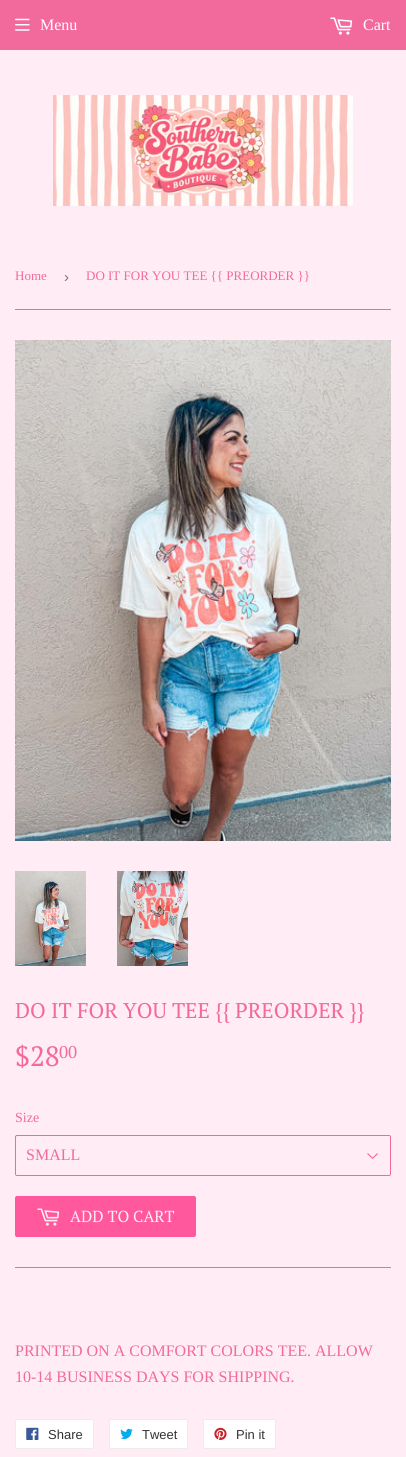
#include <cairo.h>
#include <math.h>
#include <stddef.h>


static void round_rect(cairo_t *cr, double x, double y, double w, double h, double r) {
    cairo_new_sub_path(cr);
    cairo_arc(cr, x + w - r, y + h - r, r, 0, M_PI / 2);
    cairo_arc(cr, x + r, y + h - r, r, M_PI / 2, M_PI);
    cairo_arc(cr, x + r, y + r, r, M_PI, 1.5 * M_PI);
    cairo_arc(cr, x + w - r, y + r, r, 1.5 * M_PI, 2 * M_PI);
    cairo_close_path(cr);
}

static void picture(cairo_t *cr, const char *path, double x, double y, double w, double h) {
    cairo_surface_t *image = cairo_image_surface_create_from_png(path);
    cairo_save(cr);
    cairo_set_source_surface(cr, image, x, y);
    cairo_rectangle(cr, x, y, w, h);
    cairo_fill(cr);
    cairo_restore(cr);
    cairo_surface_destroy(image);
}

int main(void) {
    cairo_surface_t *surface = cairo_image_surface_create(CAIRO_FORMAT_RGB24, 406, 1457);
    cairo_t *cr = cairo_create(surface);
    cairo_font_options_t *options = cairo_font_options_create();
    cairo_font_options_set_hint_metrics(options, CAIRO_HINT_METRICS_OFF);
    cairo_font_options_set_hint_style(options, CAIRO_HINT_STYLE_NONE);
    cairo_set_font_options(cr, options);
    cairo_set_miter_limit(cr, 4);
    cairo_set_source_rgb(cr, 1, 0.925, 0.957);
    cairo_paint(cr);
    cairo_set_source_rgb(cr, 0.949, 0.416, 0.612);
    cairo_rectangle(cr, 0, 0, 406, 50);
    cairo_fill(cr);
    picture(cr, "img1.png", 15, 18, 15, 13);
    cairo_select_font_face(cr, "Liberation Serif", CAIRO_FONT_SLANT_NORMAL, CAIRO_FONT_WEIGHT_NORMAL);
    cairo_set_font_size(cr, 16);
    cairo_set_source_rgb(cr, 1, 1, 1);
    cairo_move_to(cr, 40, 30);
    cairo_show_text(cr, "Menu");
    picture(cr, "img2.png", 330, 17, 23, 18);
    cairo_move_to(cr, 363, 30);
    cairo_show_text(cr, "Cart");
    picture(cr, "img3.png", 53, 95, 300, 111);
    cairo_set_source_rgb(cr, 0.949, 0.416, 0.612);
    cairo_rectangle(cr, 15, 309, 376, 1);
    cairo_fill(cr);
    cairo_set_font_size(cr, 13);
    cairo_move_to(cr, 15, 280);
    cairo_show_text(cr, "Home");
    cairo_select_font_face(cr, "Liberation Sans", CAIRO_FONT_SLANT_NORMAL, CAIRO_FONT_WEIGHT_NORMAL);
    cairo_set_font_size(cr, 15);
    cairo_set_source_rgb(cr, 0.463, 0.463, 0.463);
    cairo_move_to(cr, 64, 282);
    cairo_show_text(cr, "›");
    cairo_select_font_face(cr, "Liberation Serif", CAIRO_FONT_SLANT_NORMAL, CAIRO_FONT_WEIGHT_NORMAL);
    cairo_set_font_size(cr, 13);
    cairo_set_source_rgb(cr, 0.949, 0.416, 0.612);
    cairo_move_to(cr, 86, 280);
    cairo_show_text(cr, "DO IT FOR YOU TEE {{ PREORDER }}");
    picture(cr, "img4.png", 15, 340, 376, 501);
    picture(cr, "img5.png", 15, 871, 71, 95);
    picture(cr, "img6.png", 117, 871, 71, 95);
    cairo_select_font_face(cr, "PT Serif", CAIRO_FONT_SLANT_NORMAL, CAIRO_FONT_WEIGHT_NORMAL);
    cairo_set_font_size(cr, 21.3);
    cairo_move_to(cr, 15, 1018);
    cairo_show_text(cr, "DO IT FOR YOU TEE {{ PREORDER }}");
    cairo_set_font_size(cr, 28);
    cairo_move_to(cr, 15, 1066);
    cairo_show_text(cr, "$28");
    cairo_set_font_size(cr, 17);
    cairo_move_to(cr, 59, 1058);
    cairo_show_text(cr, "00");
    cairo_select_font_face(cr, "Liberation Serif", CAIRO_FONT_SLANT_NORMAL, CAIRO_FONT_WEIGHT_NORMAL);
    cairo_set_font_size(cr, 14);
    cairo_move_to(cr, 15, 1122);
    cairo_show_text(cr, "Size");
    picture(cr, "img7.png", 367, 1153, 11, 6);
    round_rect(cr, 15.5, 1135.5, 375, 40, 1.5);
    cairo_set_line_width(cr, 1);
    cairo_stroke(cr);
    cairo_set_font_size(cr, 16);
    cairo_move_to(cr, 26, 1160);
    cairo_show_text(cr, "SMALL");
    cairo_set_source_rgb(cr, 1, 0.345, 0.616);
    round_rect(cr, 15, 1196, 181, 41, 2);
    cairo_fill(cr);
    picture(cr, "img8.png", 37, 1208, 23, 18);
    cairo_select_font_face(cr, "PT Serif", CAIRO_FONT_SLANT_NORMAL, CAIRO_FONT_WEIGHT_NORMAL);
    cairo_set_source_rgb(cr, 1, 0.925, 0.957);
    cairo_move_to(cr, 70, 1222);
    cairo_show_text(cr, "ADD TO CART");
    cairo_set_source_rgb(cr, 0.949, 0.416, 0.612);
    cairo_rectangle(cr, 15, 1267, 376, 1);
    cairo_fill(cr);
    cairo_select_font_face(cr, "Liberation Serif", CAIRO_FONT_SLANT_NORMAL, CAIRO_FONT_WEIGHT_NORMAL);
    cairo_move_to(cr, 15, 1356);
    cairo_show_text(cr, "PRINTED ON A COMFORT COLORS TEE. ALLOW");
    cairo_move_to(cr, 15, 1382);
    cairo_show_text(cr, "10-14 BUSINESS DAYS FOR SHIPPING.");
    cairo_set_source_rgb(cr, 1, 1, 1);
    round_rect(cr, 15.5, 1419.5, 78, 29, 1.5);
    cairo_fill_preserve(cr);
    cairo_set_source_rgb(cr, 0.925, 0.925, 0.925);
    cairo_stroke(cr);
    picture(cr, "img9.png", 26, 1427, 13, 13);
    cairo_select_font_face(cr, "Liberation Sans", CAIRO_FONT_SLANT_NORMAL, CAIRO_FONT_WEIGHT_NORMAL);
    cairo_set_font_size(cr, 13);
    cairo_set_source_rgb(cr, 0.2, 0.2, 0.2);
    cairo_move_to(cr, 48, 1439);
    cairo_show_text(cr, "Share");
    cairo_set_source_rgb(cr, 1, 1, 1);
    round_rect(cr, 109.5, 1419.5, 78, 29, 1.5);
    cairo_fill_preserve(cr);
    cairo_set_source_rgb(cr, 0.925, 0.925, 0.925);
    cairo_stroke(cr);
    picture(cr, "img10.png", 120, 1428, 13, 11);
    cairo_set_source_rgb(cr, 0.2, 0.2, 0.2);
    cairo_move_to(cr, 142, 1439);
    cairo_show_text(cr, "Tweet");
    cairo_set_source_rgb(cr, 1, 1, 1);
    round_rect(cr, 203.5, 1419.5, 72, 29, 1.5);
    cairo_fill_preserve(cr);
    cairo_set_source_rgb(cr, 0.925, 0.925, 0.925);
    cairo_stroke(cr);
    picture(cr, "img11.png", 214, 1427, 13, 13);
    cairo_set_source_rgb(cr, 0.2, 0.2, 0.2);
    cairo_move_to(cr, 236, 1439);
    cairo_show_text(cr, "Pin it");
    cairo_surface_write_to_png(surface, "page.png");
    cairo_font_options_destroy(options);
    cairo_destroy(cr);
    cairo_surface_destroy(surface);
    return 0;
}
